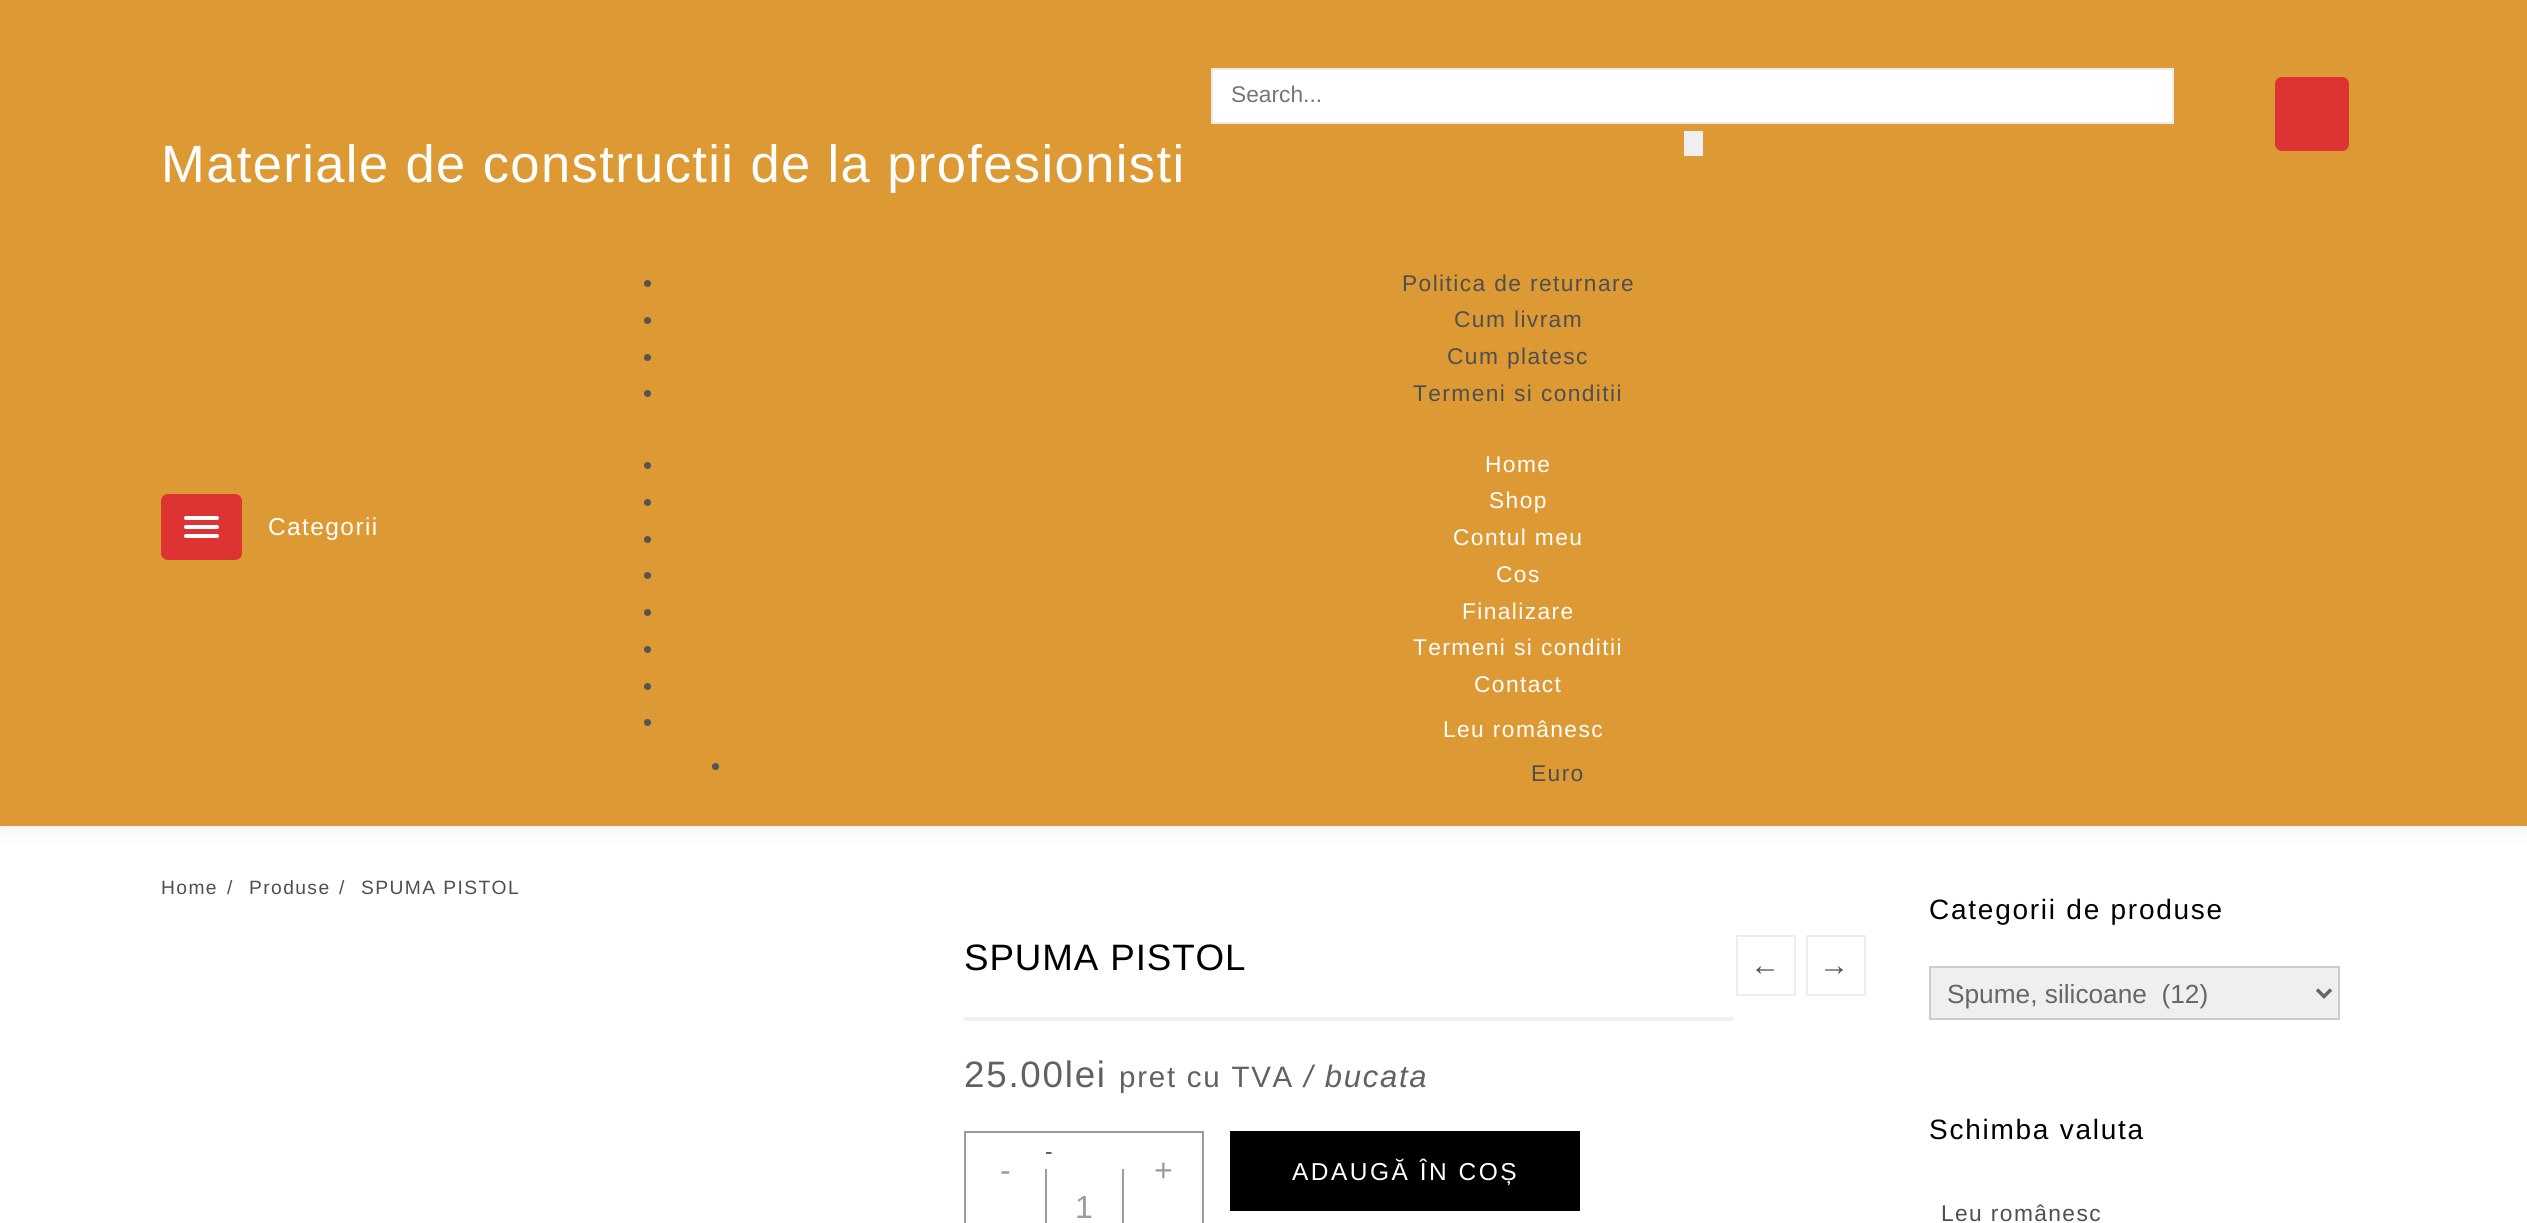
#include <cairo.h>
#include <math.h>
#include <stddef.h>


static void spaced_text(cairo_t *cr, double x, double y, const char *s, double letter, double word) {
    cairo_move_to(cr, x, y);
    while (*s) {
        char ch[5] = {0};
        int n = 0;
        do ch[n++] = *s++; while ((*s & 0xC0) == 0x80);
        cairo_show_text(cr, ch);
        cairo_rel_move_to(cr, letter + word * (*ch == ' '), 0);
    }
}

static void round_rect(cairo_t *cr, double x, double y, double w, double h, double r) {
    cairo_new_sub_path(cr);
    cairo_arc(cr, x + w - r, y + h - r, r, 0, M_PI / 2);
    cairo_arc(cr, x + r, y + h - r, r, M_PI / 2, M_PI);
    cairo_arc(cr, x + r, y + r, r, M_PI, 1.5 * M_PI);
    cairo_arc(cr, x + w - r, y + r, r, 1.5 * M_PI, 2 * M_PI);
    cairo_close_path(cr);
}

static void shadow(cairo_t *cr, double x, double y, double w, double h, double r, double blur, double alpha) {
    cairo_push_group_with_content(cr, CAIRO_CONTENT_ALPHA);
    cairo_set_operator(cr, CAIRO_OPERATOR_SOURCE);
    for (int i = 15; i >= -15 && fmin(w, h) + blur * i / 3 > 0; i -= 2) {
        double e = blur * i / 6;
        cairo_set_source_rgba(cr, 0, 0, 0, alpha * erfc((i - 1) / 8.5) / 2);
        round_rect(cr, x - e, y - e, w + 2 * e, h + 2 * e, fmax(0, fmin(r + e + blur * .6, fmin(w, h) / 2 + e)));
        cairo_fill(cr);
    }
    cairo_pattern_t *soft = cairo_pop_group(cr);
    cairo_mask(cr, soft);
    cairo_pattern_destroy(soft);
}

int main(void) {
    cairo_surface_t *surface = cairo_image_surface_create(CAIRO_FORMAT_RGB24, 2527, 1223);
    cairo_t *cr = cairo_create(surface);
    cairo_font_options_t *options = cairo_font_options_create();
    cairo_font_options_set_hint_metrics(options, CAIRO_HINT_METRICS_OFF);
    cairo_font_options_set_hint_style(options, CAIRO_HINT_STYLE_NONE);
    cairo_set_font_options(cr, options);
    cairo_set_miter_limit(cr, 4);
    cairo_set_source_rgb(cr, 1, 1, 1);
    cairo_paint(cr);
    cairo_set_source_rgb(cr, 0, 0, 0);
    shadow(cr, 2, 9, 2523, 822, 0, 10.5, 0.06);
    cairo_set_source_rgb(cr, 0.867, 0.6, 0.2);
    cairo_rectangle(cr, 0, 0, 2527, 826);
    cairo_fill(cr);
    cairo_set_source_rgb(cr, 1, 1, 1);
    cairo_rectangle(cr, 1212, 69, 961, 54);
    cairo_fill_preserve(cr);
    cairo_set_source_rgb(cr, 0.918, 0.918, 0.918);
    cairo_stroke(cr);
    cairo_select_font_face(cr, "Liberation Sans", CAIRO_FONT_SLANT_NORMAL, CAIRO_FONT_WEIGHT_NORMAL);
    cairo_set_font_size(cr, 22.75);
    cairo_set_source_rgb(cr, 0.459, 0.459, 0.459);
    cairo_move_to(cr, 1231, 102);
    cairo_show_text(cr, "Search...");
    cairo_set_source_rgb(cr, 0.937, 0.937, 0.937);
    cairo_rectangle(cr, 1684, 131, 19, 25);
    cairo_fill(cr);
    cairo_set_source_rgb(cr, 0.867, 0.2, 0.2);
    round_rect(cr, 2275, 77, 74, 74, 7);
    cairo_fill(cr);
    cairo_set_font_size(cr, 52.5);
    cairo_set_source_rgb(cr, 1, 1, 1);
    spaced_text(cr, 161, 182, "Materiale de constructii de la profesionisti", 1.4, 0);
    cairo_set_source_rgb(cr, 0.867, 0.2, 0.2);
    round_rect(cr, 161, 494, 81, 66, 7);
    cairo_fill(cr);
    cairo_set_source_rgb(cr, 1, 1, 1);
    round_rect(cr, 184, 516, 35, 4, 2);
    cairo_fill(cr);
    round_rect(cr, 184, 525, 35, 4, 2);
    cairo_fill(cr);
    round_rect(cr, 184, 534, 35, 4, 2);
    cairo_fill(cr);
    cairo_set_font_size(cr, 24.5);
    spaced_text(cr, 268, 535, "Categorii", 1.4, 0);
    cairo_set_source_rgb(cr, 0.329, 0.329, 0.329);
    cairo_new_path(cr);
    cairo_arc(cr, 647.5, 283.5, 3.5, 0, 2 * M_PI);
    cairo_fill(cr);
    cairo_set_font_size(cr, 22.75);
    cairo_set_source_rgb(cr, 0.31, 0.31, 0.31);
    spaced_text(cr, 1402, 291, "Politica de returnare", 1.4, 0);
    cairo_set_source_rgb(cr, 0.329, 0.329, 0.329);
    cairo_new_path(cr);
    cairo_arc(cr, 647.5, 320.5, 3.5, 0, 2 * M_PI);
    cairo_fill(cr);
    cairo_set_source_rgb(cr, 0.31, 0.31, 0.31);
    spaced_text(cr, 1454, 327, "Cum livram", 1.4, 0);
    cairo_set_source_rgb(cr, 0.329, 0.329, 0.329);
    cairo_new_path(cr);
    cairo_arc(cr, 647.5, 357.5, 3.5, 0, 2 * M_PI);
    cairo_fill(cr);
    cairo_set_source_rgb(cr, 0.31, 0.31, 0.31);
    spaced_text(cr, 1447, 364, "Cum platesc", 1.4, 0);
    cairo_set_source_rgb(cr, 0.329, 0.329, 0.329);
    cairo_new_path(cr);
    cairo_arc(cr, 647.5, 393.5, 3.5, 0, 2 * M_PI);
    cairo_fill(cr);
    cairo_set_source_rgb(cr, 0.31, 0.31, 0.31);
    spaced_text(cr, 1413, 401, "Termeni si conditii", 1.4, 0);
    cairo_set_source_rgb(cr, 0.329, 0.329, 0.329);
    cairo_new_path(cr);
    cairo_arc(cr, 647.5, 465.5, 3.5, 0, 2 * M_PI);
    cairo_fill(cr);
    cairo_set_source_rgb(cr, 1, 1, 1);
    spaced_text(cr, 1485, 472, "Home", 1.4, 0);
    cairo_set_source_rgb(cr, 0.329, 0.329, 0.329);
    cairo_new_path(cr);
    cairo_arc(cr, 647.5, 502.5, 3.5, 0, 2 * M_PI);
    cairo_fill(cr);
    cairo_set_source_rgb(cr, 1, 1, 1);
    spaced_text(cr, 1489, 508, "Shop", 1.4, 0);
    cairo_set_source_rgb(cr, 0.329, 0.329, 0.329);
    cairo_new_path(cr);
    cairo_arc(cr, 647.5, 539.5, 3.5, 0, 2 * M_PI);
    cairo_fill(cr);
    cairo_set_source_rgb(cr, 1, 1, 1);
    spaced_text(cr, 1453, 545, "Contul meu", 1.4, 0);
    cairo_set_source_rgb(cr, 0.329, 0.329, 0.329);
    cairo_new_path(cr);
    cairo_arc(cr, 647.5, 575.5, 3.5, 0, 2 * M_PI);
    cairo_fill(cr);
    cairo_set_source_rgb(cr, 1, 1, 1);
    spaced_text(cr, 1496, 582, "Cos", 1.4, 0);
    cairo_set_source_rgb(cr, 0.329, 0.329, 0.329);
    cairo_new_path(cr);
    cairo_arc(cr, 647.5, 612.5, 3.5, 0, 2 * M_PI);
    cairo_fill(cr);
    cairo_set_source_rgb(cr, 1, 1, 1);
    spaced_text(cr, 1462, 619, "Finalizare", 1.4, 0);
    cairo_set_source_rgb(cr, 0.329, 0.329, 0.329);
    cairo_new_path(cr);
    cairo_arc(cr, 647.5, 649.5, 3.5, 0, 2 * M_PI);
    cairo_fill(cr);
    cairo_set_source_rgb(cr, 1, 1, 1);
    spaced_text(cr, 1413, 655, "Termeni si conditii", 1.4, 0);
    cairo_set_source_rgb(cr, 0.329, 0.329, 0.329);
    cairo_new_path(cr);
    cairo_arc(cr, 647.5, 686.5, 3.5, 0, 2 * M_PI);
    cairo_fill(cr);
    cairo_set_source_rgb(cr, 1, 1, 1);
    spaced_text(cr, 1474, 692, "Contact", 1.4, 0);
    cairo_set_source_rgb(cr, 0.329, 0.329, 0.329);
    cairo_new_path(cr);
    cairo_arc(cr, 647.5, 722.5, 3.5, 0, 2 * M_PI);
    cairo_fill(cr);
    cairo_set_source_rgb(cr, 1, 1, 1);
    spaced_text(cr, 1443, 737, "Leu românesc", 1.4, 0);
    cairo_set_source_rgb(cr, 0.329, 0.329, 0.329);
    cairo_new_path(cr);
    cairo_arc(cr, 715.5, 766.5, 3.5, 0, 2 * M_PI);
    cairo_fill(cr);
    cairo_set_source_rgb(cr, 0.31, 0.31, 0.31);
    spaced_text(cr, 1531, 781, "Euro", 1.4, 0);
    cairo_set_font_size(cr, 19.25);
    spaced_text(cr, 161, 894, "Home", 1.4, 0);
    spaced_text(cr, 227, 894, "/", 1.4, 0);
    spaced_text(cr, 249, 894, "Produse", 1.4, 0);
    spaced_text(cr, 339, 894, "/", 1.4, 0);
    spaced_text(cr, 361, 894, "SPUMA PISTOL", 1.4, 0);
    cairo_set_source_rgb(cr, 0.941, 0.941, 0.941);
    cairo_rectangle(cr, 964, 1017, 770, 4);
    cairo_fill(cr);
    cairo_set_font_size(cr, 36.75);
    cairo_set_source_rgb(cr, 0, 0, 0);
    spaced_text(cr, 964, 970, "SPUMA PISTOL", 0.9, 0);
    cairo_rectangle(cr, 1737, 936, 58, 59);
    cairo_set_source_rgb(cr, 0.933, 0.933, 0.933);
    cairo_stroke(cr);
    cairo_set_font_size(cr, 30);
    cairo_set_source_rgb(cr, 0.31, 0.31, 0.31);
    spaced_text(cr, 1750, 975, "←", 1.4, 0);
    cairo_rectangle(cr, 1807, 936, 58, 59);
    cairo_set_source_rgb(cr, 0.933, 0.933, 0.933);
    cairo_stroke(cr);
    cairo_set_source_rgb(cr, 0.31, 0.31, 0.31);
    spaced_text(cr, 1819, 975, "→", 1.4, 0);
    cairo_set_font_size(cr, 36.75);
    cairo_set_source_rgb(cr, 0.384, 0.376, 0.376);
    spaced_text(cr, 964, 1087, "25.00lei", 1.75, 0);
    cairo_set_font_size(cr, 29.5);
    spaced_text(cr, 1119, 1087, "pret cu TVA", 1.75, 0);
    cairo_select_font_face(cr, "Liberation Sans", CAIRO_FONT_SLANT_ITALIC, CAIRO_FONT_WEIGHT_NORMAL);
    cairo_set_font_size(cr, 31);
    spaced_text(cr, 1304, 1087, "/ bucata", 1.75, 0);
    cairo_rectangle(cr, 965, 1132, 238, 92);
    cairo_set_source_rgb(cr, 0.612, 0.612, 0.612);
    cairo_stroke(cr);
    cairo_select_font_face(cr, "Liberation Sans", CAIRO_FONT_SLANT_NORMAL, CAIRO_FONT_WEIGHT_NORMAL);
    cairo_set_font_size(cr, 32);
    cairo_move_to(cr, 1000, 1181);
    cairo_show_text(cr, "-");
    cairo_set_font_size(cr, 22.75);
    cairo_set_source_rgb(cr, 0.31, 0.31, 0.31);
    spaced_text(cr, 1045, 1159, "-", 1.4, 0);
    cairo_set_source_rgb(cr, 0.612, 0.612, 0.612);
    cairo_rectangle(cr, 1122, 1169, 2, 54);
    cairo_fill(cr);
    cairo_rectangle(cr, 1045, 1169, 2, 54);
    cairo_fill(cr);
    cairo_set_font_size(cr, 32);
    cairo_move_to(cr, 1075, 1218);
    cairo_show_text(cr, "1");
    cairo_move_to(cr, 1154, 1181);
    cairo_show_text(cr, "+");
    cairo_set_source_rgb(cr, 0, 0, 0);
    cairo_rectangle(cr, 1230, 1131, 350, 80);
    cairo_fill(cr);
    cairo_set_font_size(cr, 24.5);
    cairo_set_source_rgb(cr, 1, 1, 1);
    spaced_text(cr, 1292, 1180, "ADAUGĂ ÎN COȘ", 2.5, 0);
    cairo_set_font_size(cr, 28);
    cairo_set_source_rgb(cr, 0, 0, 0);
    spaced_text(cr, 1929, 919, "Categorii de produse", 1.75, 0);
    cairo_set_source_rgb(cr, 0.937, 0.937, 0.937);
    cairo_rectangle(cr, 1930, 967, 409, 52);
    cairo_fill_preserve(cr);
    cairo_set_source_rgb(cr, 0.8, 0.8, 0.8);
    cairo_stroke(cr);
    cairo_new_path(cr);
    cairo_move_to(cr, 2317, 989.5);
    cairo_line_to(cr, 2324, 996.5);
    cairo_line_to(cr, 2331, 989.5);
    cairo_set_source_rgb(cr, 0.4, 0.4, 0.4);
    cairo_set_line_width(cr, 3.5);
    cairo_stroke(cr);
    cairo_set_font_size(cr, 26.25);
    cairo_move_to(cr, 1947, 1003);
    cairo_show_text(cr, "Spume, silicoane  (12)");
    cairo_set_font_size(cr, 28);
    cairo_set_source_rgb(cr, 0, 0, 0);
    spaced_text(cr, 1929, 1139, "Schimba valuta", 1.75, 0);
    cairo_set_font_size(cr, 22.75);
    cairo_set_source_rgb(cr, 0.31, 0.31, 0.31);
    spaced_text(cr, 1941, 1221, "Leu românesc", 1.4, 0);
    cairo_surface_write_to_png(surface, "page.png");
    cairo_font_options_destroy(options);
    cairo_destroy(cr);
    cairo_surface_destroy(surface);
    return 0;
}
